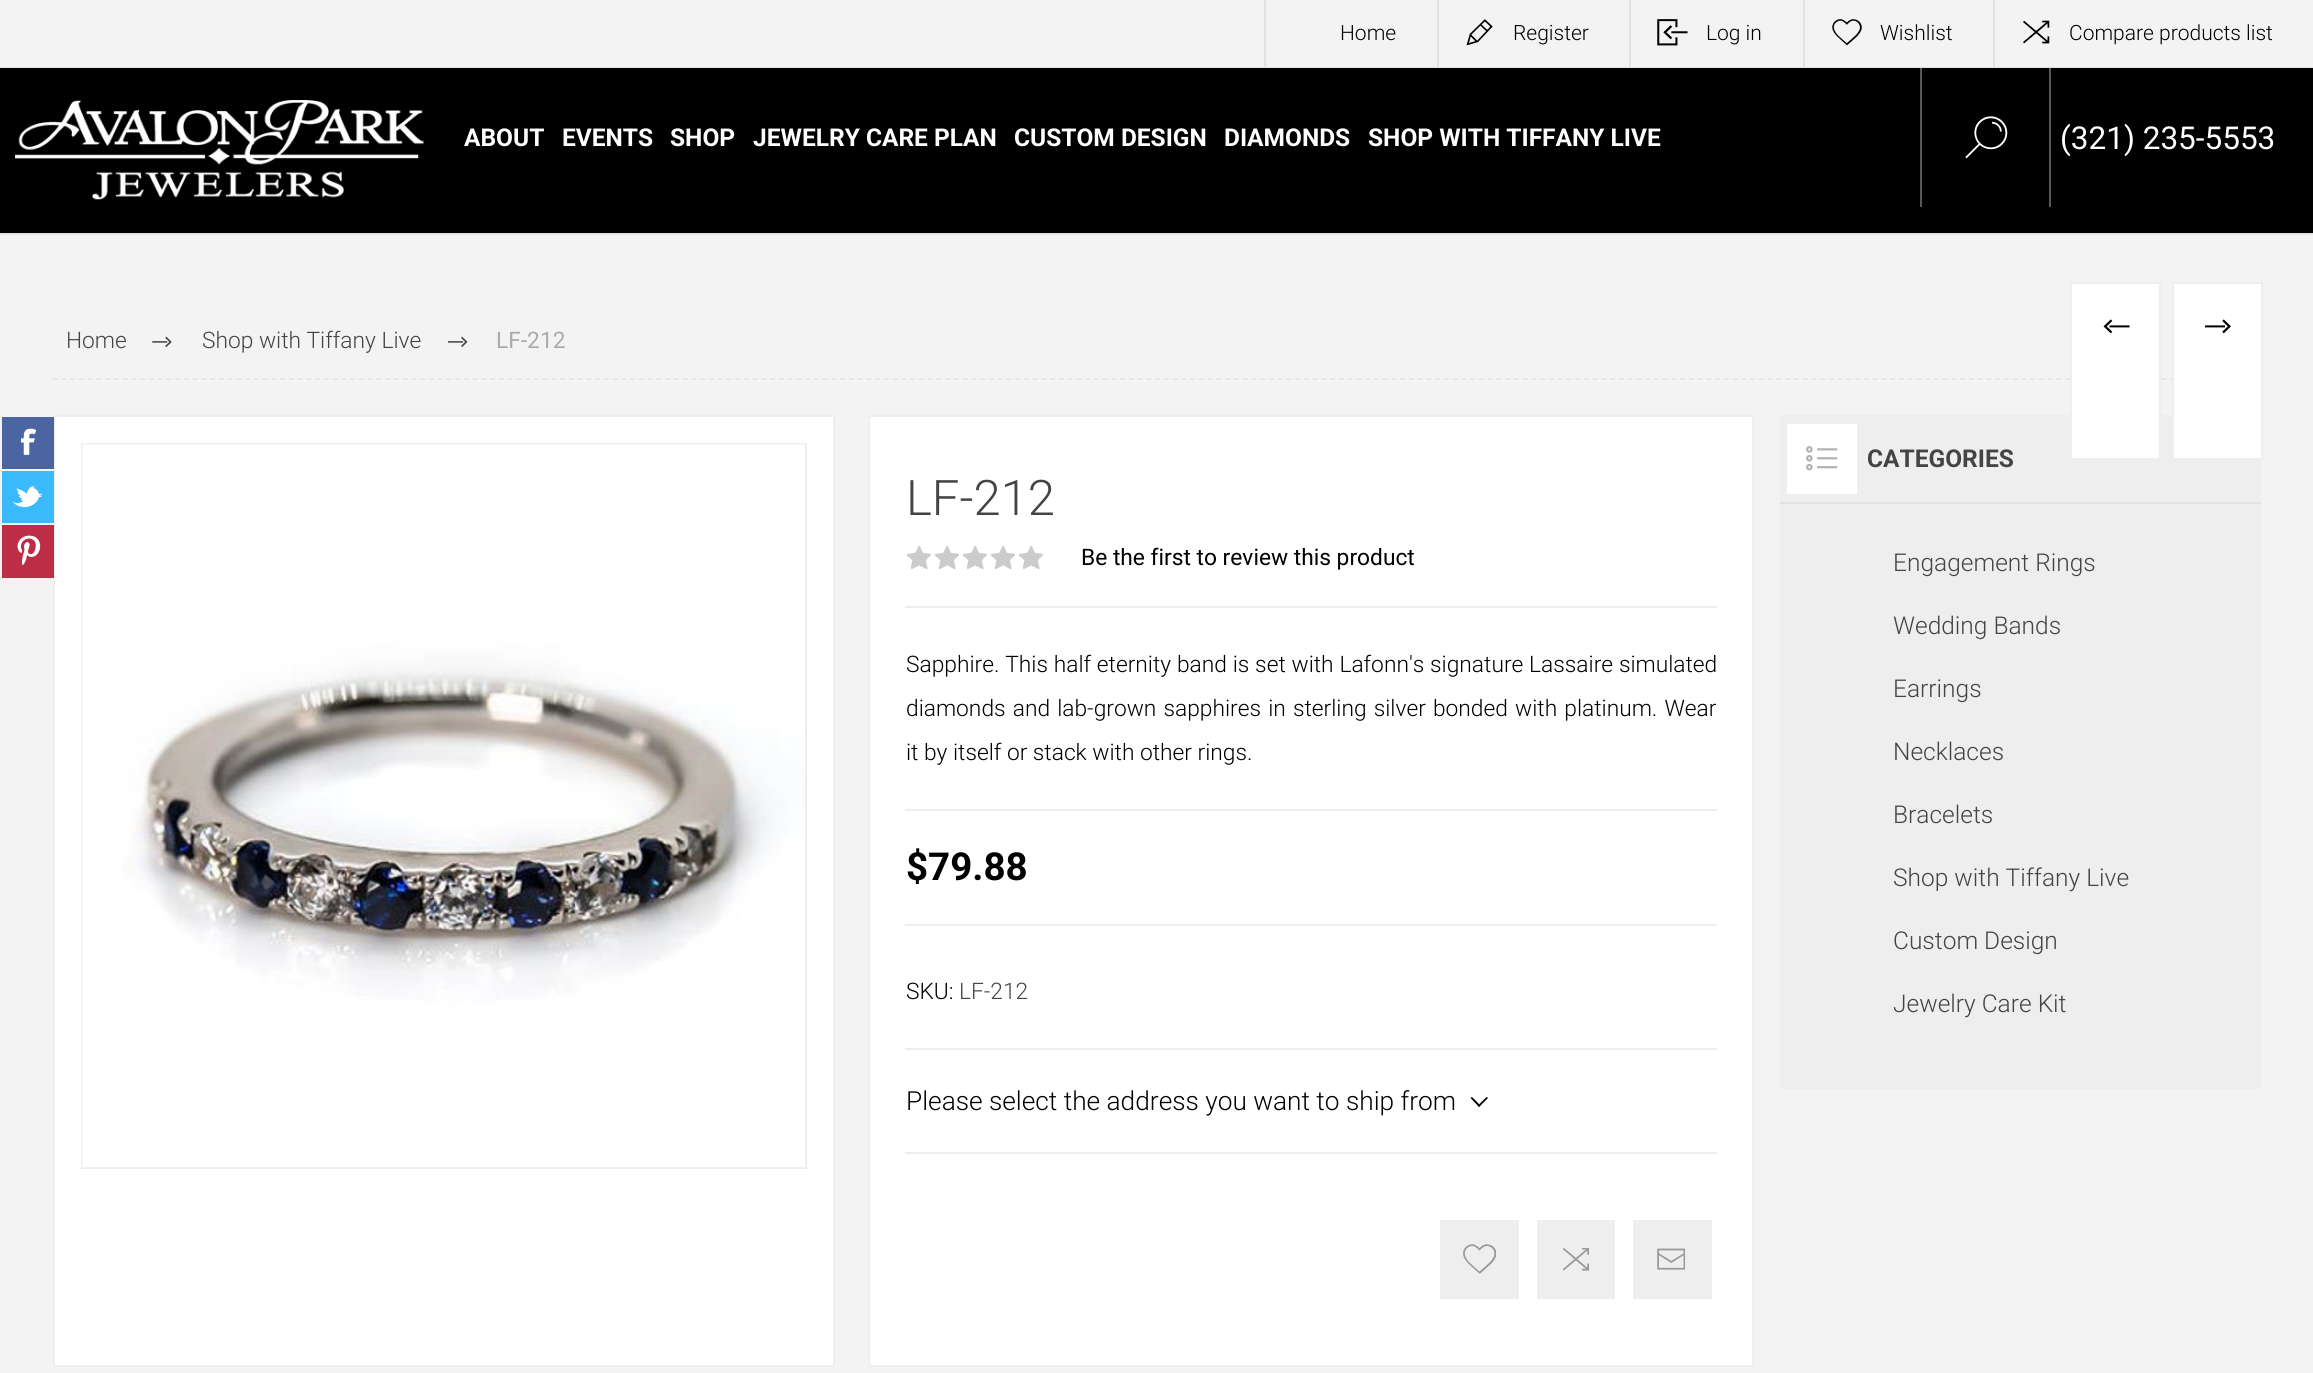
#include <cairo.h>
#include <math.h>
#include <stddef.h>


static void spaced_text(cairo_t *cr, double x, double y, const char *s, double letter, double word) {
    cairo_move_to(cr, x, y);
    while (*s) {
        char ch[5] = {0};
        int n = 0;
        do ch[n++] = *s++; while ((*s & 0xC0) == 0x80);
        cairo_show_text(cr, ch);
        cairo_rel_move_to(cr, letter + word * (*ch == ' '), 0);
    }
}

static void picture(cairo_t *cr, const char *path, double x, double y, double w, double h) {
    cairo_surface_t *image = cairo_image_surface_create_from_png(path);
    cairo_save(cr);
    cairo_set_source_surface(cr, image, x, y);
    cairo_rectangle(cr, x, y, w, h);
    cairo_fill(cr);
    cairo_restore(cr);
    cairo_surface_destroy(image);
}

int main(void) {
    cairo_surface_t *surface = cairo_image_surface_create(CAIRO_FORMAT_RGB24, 2313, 1373);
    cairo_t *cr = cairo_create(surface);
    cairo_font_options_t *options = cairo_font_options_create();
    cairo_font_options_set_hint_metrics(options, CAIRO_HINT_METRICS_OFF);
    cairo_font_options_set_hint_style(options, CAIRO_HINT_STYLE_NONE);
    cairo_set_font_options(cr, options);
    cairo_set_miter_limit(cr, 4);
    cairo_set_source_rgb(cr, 0.953, 0.953, 0.953);
    cairo_paint(cr);
    cairo_set_source_rgb(cr, 0.89, 0.89, 0.89);
    cairo_rectangle(cr, 0, 67, 2313, 1);
    cairo_fill(cr);
    cairo_rectangle(cr, 1264, 0, 2, 67);
    cairo_fill(cr);
    cairo_select_font_face(cr, "Roboto Light", CAIRO_FONT_SLANT_NORMAL, CAIRO_FONT_WEIGHT_NORMAL);
    cairo_set_font_size(cr, 21);
    cairo_set_source_rgb(cr, 0, 0, 0);
    cairo_move_to(cr, 1340, 40);
    cairo_show_text(cr, "Home");
    cairo_set_source_rgb(cr, 0.89, 0.89, 0.89);
    cairo_rectangle(cr, 1437, 0, 2, 67);
    cairo_fill(cr);
    picture(cr, "img1.png", 1466, 19, 27, 27);
    cairo_set_source_rgb(cr, 0, 0, 0);
    cairo_move_to(cr, 1513, 40);
    cairo_show_text(cr, "Register");
    cairo_set_source_rgb(cr, 0.89, 0.89, 0.89);
    cairo_rectangle(cr, 1629, 0, 2, 67);
    cairo_fill(cr);
    picture(cr, "img2.png", 1657, 19, 31, 27);
    cairo_set_source_rgb(cr, 0, 0, 0);
    cairo_move_to(cr, 1706, 40);
    cairo_show_text(cr, "Log in");
    cairo_set_source_rgb(cr, 0.89, 0.89, 0.89);
    cairo_rectangle(cr, 1803, 0, 2, 67);
    cairo_fill(cr);
    picture(cr, "img3.png", 1832, 19, 30, 27);
    cairo_set_source_rgb(cr, 0, 0, 0);
    cairo_move_to(cr, 1880, 40);
    cairo_show_text(cr, "Wishlist");
    cairo_set_source_rgb(cr, 0.89, 0.89, 0.89);
    cairo_rectangle(cr, 1993, 0, 2, 67);
    cairo_fill(cr);
    picture(cr, "img4.png", 2023, 20, 27, 24);
    cairo_set_source_rgb(cr, 0, 0, 0);
    cairo_move_to(cr, 2069, 40);
    cairo_show_text(cr, "Compare products list");
    cairo_rectangle(cr, 0, 68, 2313, 165);
    cairo_fill(cr);
    cairo_set_source_rgb(cr, 0.89, 0.89, 0.89);
    cairo_rectangle(cr, 0, 233, 2313, 2);
    cairo_fill(cr);
    picture(cr, "img5.png", 15, 100, 409, 100);
    cairo_select_font_face(cr, "Roboto", CAIRO_FONT_SLANT_NORMAL, CAIRO_FONT_WEIGHT_BOLD);
    cairo_set_font_size(cr, 24.5);
    cairo_set_source_rgb(cr, 1, 1, 1);
    cairo_move_to(cr, 464, 146);
    cairo_show_text(cr, "ABOUT");
    cairo_move_to(cr, 562, 146);
    cairo_show_text(cr, "EVENTS");
    cairo_move_to(cr, 670, 146);
    cairo_show_text(cr, "SHOP");
    cairo_move_to(cr, 753, 146);
    cairo_show_text(cr, "JEWELRY CARE PLAN");
    cairo_move_to(cr, 1014, 146);
    cairo_show_text(cr, "CUSTOM DESIGN");
    cairo_move_to(cr, 1224, 146);
    cairo_show_text(cr, "DIAMONDS");
    cairo_move_to(cr, 1368, 146);
    cairo_show_text(cr, "SHOP WITH TIFFANY LIVE");
    cairo_set_source_rgb(cr, 0.341, 0.341, 0.341);
    cairo_rectangle(cr, 2049, 68, 2, 139);
    cairo_fill(cr);
    cairo_rectangle(cr, 1920, 68, 2, 139);
    cairo_fill(cr);
    picture(cr, "img6.png", 1965, 116, 43, 43);
    cairo_select_font_face(cr, "Roboto", CAIRO_FONT_SLANT_NORMAL, CAIRO_FONT_WEIGHT_NORMAL);
    cairo_set_font_size(cr, 31.5);
    cairo_set_source_rgb(cr, 1, 1, 1);
    cairo_move_to(cr, 2060, 149);
    cairo_show_text(cr, "(321) 235-5553");
    cairo_new_path(cr);
    cairo_move_to(cr, 52.5, 379);
    cairo_line_to(cr, 2261, 379);
    cairo_set_source_rgb(cr, 0.902, 0.902, 0.902);
    cairo_set_line_width(cr, 1.8);
    cairo_set_dash(cr, (double[]){5.25, 3.5}, 2, 0);
    cairo_stroke(cr);
    cairo_select_font_face(cr, "Roboto Light", CAIRO_FONT_SLANT_NORMAL, CAIRO_FONT_WEIGHT_NORMAL);
    cairo_set_font_size(cr, 22.75);
    cairo_set_source_rgb(cr, 0.267, 0.267, 0.267);
    cairo_move_to(cr, 66, 348);
    cairo_show_text(cr, "Home");
    picture(cr, "img7.png", 152, 336, 20, 12);
    cairo_move_to(cr, 202, 348);
    cairo_show_text(cr, "Shop with Tiffany Live");
    picture(cr, "img8.png", 448, 336, 20, 12);
    cairo_select_font_face(cr, "Roboto", CAIRO_FONT_SLANT_NORMAL, CAIRO_FONT_WEIGHT_NORMAL);
    cairo_set_source_rgb(cr, 0.667, 0.667, 0.667);
    cairo_move_to(cr, 496, 348);
    cairo_show_text(cr, "LF-212");
    cairo_set_source_rgb(cr, 0.933, 0.933, 0.933);
    cairo_rectangle(cr, 1780, 415, 481, 674);
    cairo_fill(cr);
    cairo_set_source_rgb(cr, 1, 1, 1);
    cairo_rectangle(cr, 2071, 283, 89, 176);
    cairo_fill_preserve(cr);
    cairo_set_source_rgb(cr, 0.933, 0.933, 0.933);
    cairo_set_line_width(cr, 2);
    cairo_set_dash(cr, NULL, 0, 0);
    cairo_stroke(cr);
    picture(cr, "img9.png", 2103, 319, 27, 15);
    cairo_set_source_rgb(cr, 1, 1, 1);
    cairo_rectangle(cr, 2173, 283, 89, 176);
    cairo_fill_preserve(cr);
    cairo_set_source_rgb(cr, 0.933, 0.933, 0.933);
    cairo_stroke(cr);
    picture(cr, "img10.png", 2205, 319, 26, 15);
    cairo_set_source_rgb(cr, 1, 1, 1);
    cairo_rectangle(cr, 54, 416, 780, 950);
    cairo_fill_preserve(cr);
    cairo_set_source_rgb(cr, 0.933, 0.933, 0.933);
    cairo_stroke(cr);
    cairo_set_source_rgb(cr, 0.29, 0.396, 0.635);
    cairo_rectangle(cr, 2, 417, 52, 52);
    cairo_fill(cr);
    picture(cr, "img11.png", 21, 428, 16, 27);
    cairo_set_source_rgb(cr, 0.227, 0.729, 0.992);
    cairo_rectangle(cr, 2, 471, 52, 52);
    cairo_fill(cr);
    picture(cr, "img12.png", 12, 486, 31, 22);
    cairo_set_source_rgb(cr, 0.741, 0.176, 0.271);
    cairo_rectangle(cr, 2, 525, 52, 53);
    cairo_fill(cr);
    picture(cr, "img13.png", 17, 535, 24, 31);
    cairo_rectangle(cr, 82, 444, 724, 724);
    cairo_set_source_rgb(cr, 0.933, 0.933, 0.933);
    cairo_stroke(cr);
    picture(cr, "img14.png", 82, 444, 723, 724);
    cairo_set_source_rgb(cr, 1, 1, 1);
    cairo_rectangle(cr, 869, 416, 884, 950);
    cairo_fill_preserve(cr);
    cairo_set_source_rgb(cr, 0.933, 0.933, 0.933);
    cairo_stroke(cr);
    cairo_select_font_face(cr, "Roboto Light", CAIRO_FONT_SLANT_NORMAL, CAIRO_FONT_WEIGHT_NORMAL);
    cairo_set_font_size(cr, 49);
    cairo_set_source_rgb(cr, 0.267, 0.267, 0.267);
    cairo_move_to(cr, 906, 515);
    cairo_show_text(cr, "LF-212");
    cairo_set_source_rgb(cr, 0.933, 0.933, 0.933);
    cairo_rectangle(cr, 905, 606, 812, 2);
    cairo_fill(cr);
    picture(cr, "img15.png", 906, 545, 138, 25);
    cairo_select_font_face(cr, "Roboto", CAIRO_FONT_SLANT_NORMAL, CAIRO_FONT_WEIGHT_NORMAL);
    cairo_set_font_size(cr, 22.75);
    cairo_set_source_rgb(cr, 0, 0, 0);
    cairo_move_to(cr, 1081, 565);
    cairo_show_text(cr, "Be the first to review this product");
    cairo_set_source_rgb(cr, 0.933, 0.933, 0.933);
    cairo_rectangle(cr, 905, 809, 812, 2);
    cairo_fill(cr);
    cairo_select_font_face(cr, "Roboto Light", CAIRO_FONT_SLANT_NORMAL, CAIRO_FONT_WEIGHT_NORMAL);
    cairo_set_source_rgb(cr, 0, 0, 0);
    spaced_text(cr, 906, 672, "Sapphire. This half eternity band is set with Lafonn's signature Lassaire simulated", 0, 0.25);
    spaced_text(cr, 906, 716, "diamonds and lab-grown sapphires in sterling silver bonded with platinum. Wear", 0, 1.6);
    cairo_move_to(cr, 906, 760);
    cairo_show_text(cr, "it by itself or stack with other rings.");
    cairo_set_source_rgb(cr, 0.933, 0.933, 0.933);
    cairo_rectangle(cr, 905, 924, 812, 2);
    cairo_fill(cr);
    cairo_select_font_face(cr, "Roboto", CAIRO_FONT_SLANT_NORMAL, CAIRO_FONT_WEIGHT_BOLD);
    cairo_set_font_size(cr, 38.5);
    cairo_set_source_rgb(cr, 0, 0, 0);
    cairo_move_to(cr, 906, 880);
    cairo_show_text(cr, "$79.88");
    cairo_set_source_rgb(cr, 0.933, 0.933, 0.933);
    cairo_rectangle(cr, 905, 1048, 812, 2);
    cairo_fill(cr);
    cairo_select_font_face(cr, "Roboto Light", CAIRO_FONT_SLANT_NORMAL, CAIRO_FONT_WEIGHT_NORMAL);
    cairo_set_font_size(cr, 22.75);
    cairo_set_source_rgb(cr, 0, 0, 0);
    cairo_move_to(cr, 906, 999);
    cairo_show_text(cr, "SKU:");
    cairo_set_source_rgb(cr, 0.267, 0.267, 0.267);
    cairo_move_to(cr, 959, 999);
    cairo_show_text(cr, "LF-212");
    cairo_set_source_rgb(cr, 0.933, 0.933, 0.933);
    cairo_rectangle(cr, 905, 1152, 812, 2);
    cairo_fill(cr);
    cairo_set_font_size(cr, 26.25);
    cairo_set_source_rgb(cr, 0, 0, 0);
    cairo_move_to(cr, 906, 1110);
    cairo_show_text(cr, "Please select the address you want to ship from");
    cairo_new_path(cr);
    cairo_move_to(cr, 1486.5, 1097);
    cairo_line_to(cr, 1488, 1098);
    cairo_line_to(cr, 1479, 1107);
    cairo_line_to(cr, 1478, 1105.5);
    cairo_close_path(cr);
    cairo_fill(cr);
    cairo_new_path(cr);
    cairo_move_to(cr, 1472, 1097);
    cairo_line_to(cr, 1480.5, 1105.5);
    cairo_line_to(cr, 1479, 1107);
    cairo_line_to(cr, 1470.5, 1098);
    cairo_close_path(cr);
    cairo_fill(cr);
    cairo_set_source_rgb(cr, 0.933, 0.933, 0.933);
    cairo_rectangle(cr, 1440, 1220, 79, 79);
    cairo_fill(cr);
    picture(cr, "img16.png", 1463, 1244, 33, 30);
    cairo_rectangle(cr, 1537, 1220, 78, 79);
    cairo_fill(cr);
    picture(cr, "img17.png", 1563, 1248, 26, 23);
    cairo_rectangle(cr, 1633, 1220, 79, 79);
    cairo_fill(cr);
    picture(cr, "img18.png", 1657, 1248, 28, 22);
    cairo_set_source_rgb(cr, 0.882, 0.882, 0.882);
    cairo_rectangle(cr, 1780, 502, 481, 2);
    cairo_fill(cr);
    cairo_set_source_rgb(cr, 1, 1, 1);
    cairo_rectangle(cr, 1787, 424, 70, 70);
    cairo_fill(cr);
    picture(cr, "img19.png", 1806, 446, 32, 25);
    cairo_select_font_face(cr, "Roboto", CAIRO_FONT_SLANT_NORMAL, CAIRO_FONT_WEIGHT_BOLD);
    cairo_set_font_size(cr, 24.5);
    cairo_set_source_rgb(cr, 0.267, 0.267, 0.267);
    cairo_move_to(cr, 1867, 467);
    cairo_show_text(cr, "CATEGORIES");
    cairo_select_font_face(cr, "Roboto Light", CAIRO_FONT_SLANT_NORMAL, CAIRO_FONT_WEIGHT_NORMAL);
    cairo_move_to(cr, 1893, 571);
    cairo_show_text(cr, "Engagement Rings");
    cairo_move_to(cr, 1893, 634);
    cairo_show_text(cr, "Wedding Bands");
    cairo_move_to(cr, 1893, 697);
    cairo_show_text(cr, "Earrings");
    cairo_move_to(cr, 1893, 760);
    cairo_show_text(cr, "Necklaces");
    cairo_move_to(cr, 1893, 823);
    cairo_show_text(cr, "Bracelets");
    cairo_move_to(cr, 1893, 886);
    cairo_show_text(cr, "Shop with Tiffany Live");
    cairo_move_to(cr, 1893, 949);
    cairo_show_text(cr, "Custom Design");
    cairo_move_to(cr, 1893, 1012);
    cairo_show_text(cr, "Jewelry Care Kit");
    cairo_surface_write_to_png(surface, "page.png");
    cairo_font_options_destroy(options);
    cairo_destroy(cr);
    cairo_surface_destroy(surface);
    return 0;
}
